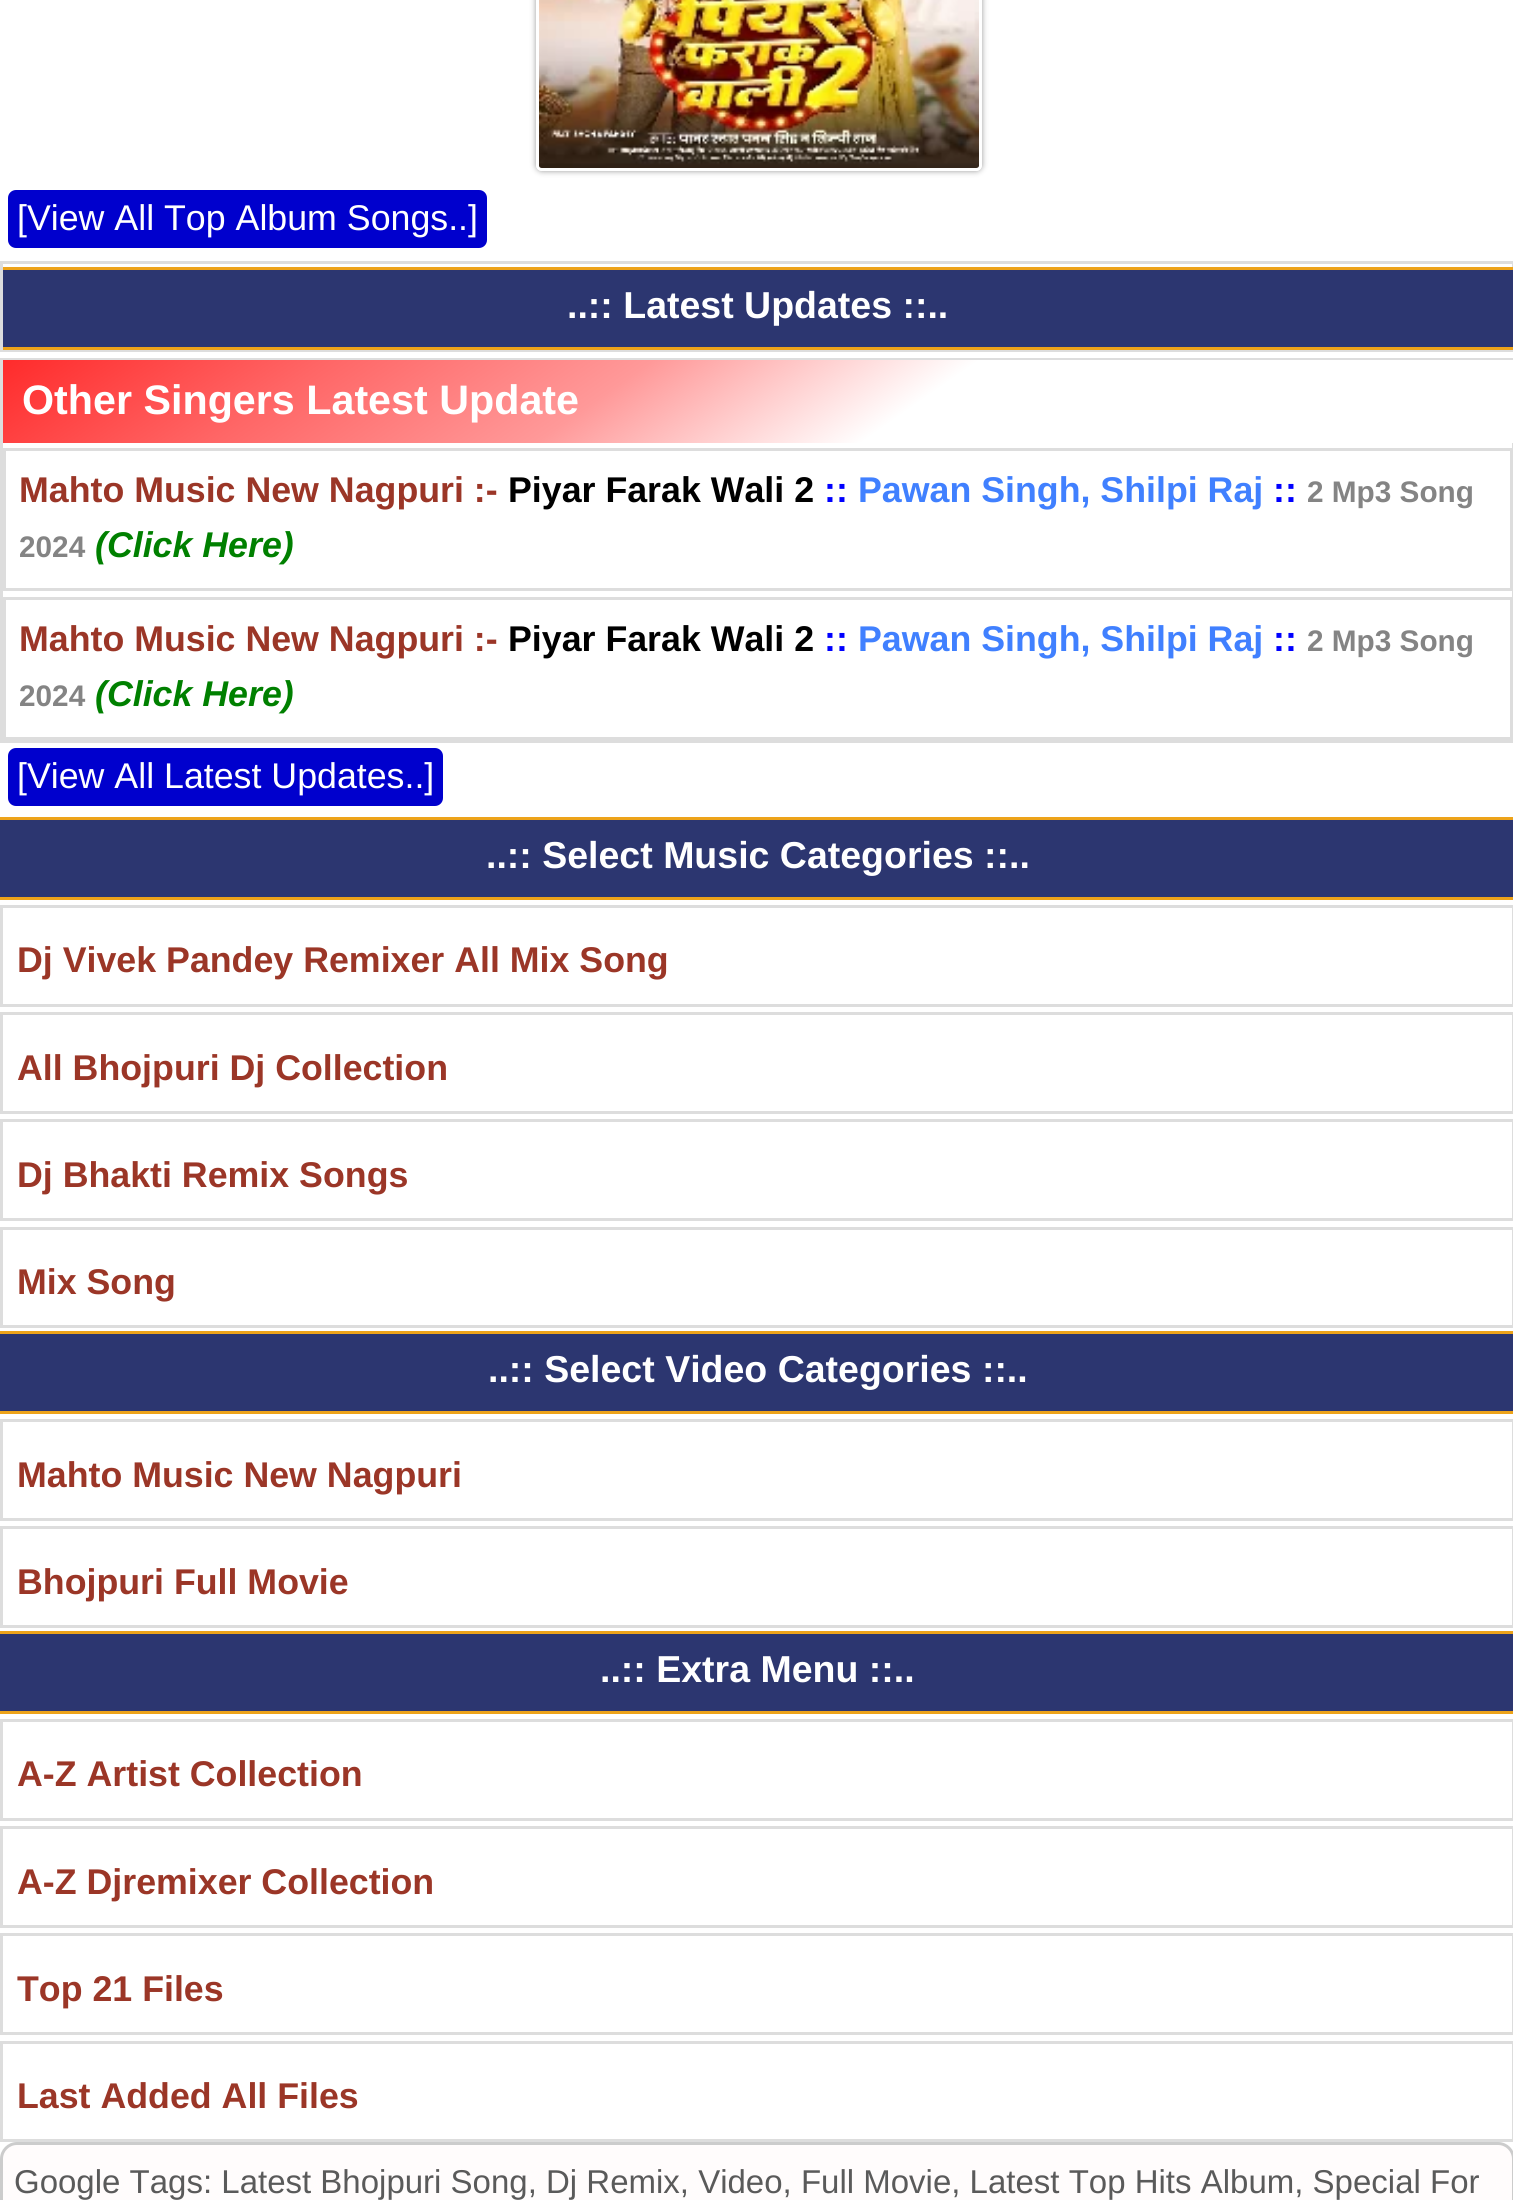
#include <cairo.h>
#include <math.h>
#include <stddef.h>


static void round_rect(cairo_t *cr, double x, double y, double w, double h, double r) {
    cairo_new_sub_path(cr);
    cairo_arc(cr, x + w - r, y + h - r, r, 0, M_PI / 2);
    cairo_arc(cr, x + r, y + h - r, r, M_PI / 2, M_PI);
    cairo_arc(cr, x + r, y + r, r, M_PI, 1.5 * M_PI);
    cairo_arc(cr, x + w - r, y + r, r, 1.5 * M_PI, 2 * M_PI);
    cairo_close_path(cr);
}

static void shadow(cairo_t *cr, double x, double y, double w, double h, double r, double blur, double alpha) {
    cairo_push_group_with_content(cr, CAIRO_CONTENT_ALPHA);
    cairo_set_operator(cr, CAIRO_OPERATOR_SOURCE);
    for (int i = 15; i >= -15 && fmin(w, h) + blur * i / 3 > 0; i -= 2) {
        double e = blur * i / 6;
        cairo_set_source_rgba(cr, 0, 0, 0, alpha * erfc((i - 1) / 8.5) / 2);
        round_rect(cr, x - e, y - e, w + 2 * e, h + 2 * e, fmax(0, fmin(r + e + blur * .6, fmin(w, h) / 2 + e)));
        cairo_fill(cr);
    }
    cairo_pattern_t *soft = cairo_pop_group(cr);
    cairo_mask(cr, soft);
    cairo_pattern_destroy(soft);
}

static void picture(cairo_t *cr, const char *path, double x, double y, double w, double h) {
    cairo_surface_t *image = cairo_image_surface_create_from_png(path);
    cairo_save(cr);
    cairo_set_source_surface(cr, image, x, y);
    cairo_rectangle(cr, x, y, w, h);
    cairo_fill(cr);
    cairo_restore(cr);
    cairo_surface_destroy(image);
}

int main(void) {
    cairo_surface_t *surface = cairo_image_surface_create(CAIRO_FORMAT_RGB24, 1513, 2200);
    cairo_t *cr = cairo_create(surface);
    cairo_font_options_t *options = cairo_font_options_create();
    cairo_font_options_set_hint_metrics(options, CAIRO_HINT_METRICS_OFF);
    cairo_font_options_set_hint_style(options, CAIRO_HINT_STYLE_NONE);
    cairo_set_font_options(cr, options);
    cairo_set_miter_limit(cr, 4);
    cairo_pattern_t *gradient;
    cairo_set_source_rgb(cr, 1, 1, 1);
    cairo_paint(cr);
    cairo_save(cr);
    cairo_set_fill_rule(cr, CAIRO_FILL_RULE_EVEN_ODD);
    cairo_new_path(cr);
    cairo_move_to(cr, 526, 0);
    cairo_line_to(cr, 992, 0);
    cairo_line_to(cr, 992, 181);
    cairo_line_to(cr, 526, 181);
    cairo_close_path(cr);
    cairo_move_to(cr, 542, -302);
    cairo_line_to(cr, 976, -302);
    cairo_curve_to(cr, 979.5, -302, 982, -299.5, 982, -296);
    cairo_line_to(cr, 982, 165);
    cairo_curve_to(cr, 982, 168.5, 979.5, 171, 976, 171);
    cairo_line_to(cr, 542, 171);
    cairo_curve_to(cr, 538.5, 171, 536, 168.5, 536, 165);
    cairo_line_to(cr, 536, -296);
    cairo_curve_to(cr, 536, -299.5, 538.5, -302, 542, -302);
    cairo_close_path(cr);
    cairo_clip(cr);
    cairo_set_source_rgb(cr, 0.6, 0.6, 0.6);
    shadow(cr, 536, -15, 446, 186, 6, 3, 1);
    cairo_restore(cr);
    picture(cr, "img1.png", 539, 0, 440, 168);
    cairo_set_source_rgb(cr, 0, 0, 0.804);
    round_rect(cr, 8, 190, 479, 58, 8);
    cairo_fill(cr);
    cairo_select_font_face(cr, "Liberation Sans", CAIRO_FONT_SLANT_NORMAL, CAIRO_FONT_WEIGHT_NORMAL);
    cairo_set_font_size(cr, 35.75);
    cairo_set_source_rgb(cr, 1, 1, 1);
    cairo_move_to(cr, 17, 230);
    cairo_show_text(cr, "[View All Top Album Songs..]");
    cairo_rectangle(cr, 1.5, 262.5, 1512, 88);
    cairo_set_source_rgb(cr, 0.867, 0.867, 0.867);
    cairo_set_line_width(cr, 3);
    cairo_stroke(cr);
    cairo_set_source_rgb(cr, 0.173, 0.212, 0.439);
    cairo_rectangle(cr, 3, 270, 1510, 77);
    cairo_fill(cr);
    cairo_set_source_rgb(cr, 0.929, 0.639, 0.102);
    cairo_rectangle(cr, 3, 267, 1510, 3);
    cairo_fill(cr);
    cairo_rectangle(cr, 3, 347, 1510, 3);
    cairo_fill(cr);
    cairo_select_font_face(cr, "Liberation Sans", CAIRO_FONT_SLANT_NORMAL, CAIRO_FONT_WEIGHT_BOLD);
    cairo_set_font_size(cr, 37.5);
    cairo_set_source_rgb(cr, 1, 1, 1);
    cairo_move_to(cr, 567, 318);
    cairo_show_text(cr, "..:: Latest Updates ::..");
    cairo_rectangle(cr, 1.5, 359.5, 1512, 382);
    cairo_set_source_rgb(cr, 0.867, 0.867, 0.867);
    cairo_stroke(cr);
    gradient = cairo_pattern_create_linear(1025, 784, 490, 19);
    cairo_pattern_add_color_stop_rgba(gradient, 0, 1, 1, 1, 1);
    cairo_pattern_add_color_stop_rgba(gradient, 0.4, 1, 1, 1, 1);
    cairo_pattern_add_color_stop_rgba(gradient, 0.6, 1, 0.6, 0.6, 1);
    cairo_pattern_add_color_stop_rgba(gradient, 0.8, 1, 0.4, 0.4, 1);
    cairo_pattern_add_color_stop_rgba(gradient, 1, 1, 0.169, 0.169, 1);
    cairo_set_source(cr, gradient);
    cairo_pattern_destroy(gradient);
    cairo_rectangle(cr, 3, 360, 1510, 83);
    cairo_fill(cr);
    cairo_set_font_size(cr, 41.25);
    cairo_set_source_rgb(cr, 1, 1, 1);
    cairo_move_to(cr, 22, 414);
    cairo_show_text(cr, "Other Singers Latest Update");
    cairo_rectangle(cr, 4.5, 449.5, 1507, 140);
    cairo_set_source_rgb(cr, 0.867, 0.867, 0.867);
    cairo_stroke(cr);
    cairo_set_font_size(cr, 35.75);
    cairo_set_source_rgb(cr, 0.608, 0.212, 0.153);
    cairo_move_to(cr, 19, 502);
    cairo_show_text(cr, "Mahto Music New Nagpuri :-");
    cairo_set_source_rgb(cr, 0, 0, 0);
    cairo_move_to(cr, 508, 502);
    cairo_show_text(cr, "Piyar Farak Wali 2");
    cairo_set_source_rgb(cr, 0, 0, 1);
    cairo_move_to(cr, 824, 502);
    cairo_show_text(cr, "::");
    cairo_set_source_rgb(cr, 0.251, 0.502, 1);
    cairo_move_to(cr, 858, 502);
    cairo_show_text(cr, "Pawan Singh, Shilpi Raj");
    cairo_set_source_rgb(cr, 0, 0, 1);
    cairo_move_to(cr, 1273, 502);
    cairo_show_text(cr, "::");
    cairo_set_font_size(cr, 29.75);
    cairo_set_source_rgb(cr, 0.518, 0.518, 0.518);
    cairo_move_to(cr, 1307, 502);
    cairo_show_text(cr, "2 Mp3 Song");
    cairo_move_to(cr, 19, 557);
    cairo_show_text(cr, "2024");
    cairo_select_font_face(cr, "Liberation Sans", CAIRO_FONT_SLANT_ITALIC, CAIRO_FONT_WEIGHT_BOLD);
    cairo_set_font_size(cr, 35.75);
    cairo_set_source_rgb(cr, 0, 0.502, 0);
    cairo_move_to(cr, 95, 557);
    cairo_show_text(cr, "(Click Here)");
    cairo_rectangle(cr, 4.5, 598.5, 1507, 140);
    cairo_set_source_rgb(cr, 0.867, 0.867, 0.867);
    cairo_stroke(cr);
    cairo_select_font_face(cr, "Liberation Sans", CAIRO_FONT_SLANT_NORMAL, CAIRO_FONT_WEIGHT_BOLD);
    cairo_set_source_rgb(cr, 0.608, 0.212, 0.153);
    cairo_move_to(cr, 19, 651);
    cairo_show_text(cr, "Mahto Music New Nagpuri :-");
    cairo_set_source_rgb(cr, 0, 0, 0);
    cairo_move_to(cr, 508, 651);
    cairo_show_text(cr, "Piyar Farak Wali 2");
    cairo_set_source_rgb(cr, 0, 0, 1);
    cairo_move_to(cr, 824, 651);
    cairo_show_text(cr, "::");
    cairo_set_source_rgb(cr, 0.251, 0.502, 1);
    cairo_move_to(cr, 858, 651);
    cairo_show_text(cr, "Pawan Singh, Shilpi Raj");
    cairo_set_source_rgb(cr, 0, 0, 1);
    cairo_move_to(cr, 1273, 651);
    cairo_show_text(cr, "::");
    cairo_set_font_size(cr, 29.75);
    cairo_set_source_rgb(cr, 0.518, 0.518, 0.518);
    cairo_move_to(cr, 1307, 651);
    cairo_show_text(cr, "2 Mp3 Song");
    cairo_move_to(cr, 19, 706);
    cairo_show_text(cr, "2024");
    cairo_select_font_face(cr, "Liberation Sans", CAIRO_FONT_SLANT_ITALIC, CAIRO_FONT_WEIGHT_BOLD);
    cairo_set_font_size(cr, 35.75);
    cairo_set_source_rgb(cr, 0, 0.502, 0);
    cairo_move_to(cr, 95, 706);
    cairo_show_text(cr, "(Click Here)");
    cairo_set_source_rgb(cr, 0, 0, 0.804);
    round_rect(cr, 8, 748, 435, 58, 8);
    cairo_fill(cr);
    cairo_select_font_face(cr, "Liberation Sans", CAIRO_FONT_SLANT_NORMAL, CAIRO_FONT_WEIGHT_NORMAL);
    cairo_set_source_rgb(cr, 1, 1, 1);
    cairo_move_to(cr, 17, 788);
    cairo_show_text(cr, "[View All Latest Updates..]");
    cairo_set_source_rgb(cr, 0.173, 0.212, 0.439);
    cairo_rectangle(cr, 0, 820, 1513, 77);
    cairo_fill(cr);
    cairo_set_source_rgb(cr, 0.929, 0.639, 0.102);
    cairo_rectangle(cr, 0, 817, 1513, 3);
    cairo_fill(cr);
    cairo_rectangle(cr, 0, 897, 1513, 3);
    cairo_fill(cr);
    cairo_select_font_face(cr, "Liberation Sans", CAIRO_FONT_SLANT_NORMAL, CAIRO_FONT_WEIGHT_BOLD);
    cairo_set_font_size(cr, 37.5);
    cairo_set_source_rgb(cr, 1, 1, 1);
    cairo_move_to(cr, 486, 868);
    cairo_show_text(cr, "..:: Select Music Categories ::..");
    cairo_rectangle(cr, 1.5, 906.5, 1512, 99);
    cairo_set_source_rgb(cr, 0.867, 0.867, 0.867);
    cairo_stroke(cr);
    cairo_set_font_size(cr, 35.75);
    cairo_set_source_rgb(cr, 0.608, 0.212, 0.153);
    cairo_move_to(cr, 17, 972);
    cairo_show_text(cr, "Dj Vivek Pandey Remixer All Mix Song");
    cairo_rectangle(cr, 1.5, 1013.5, 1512, 99);
    cairo_set_source_rgb(cr, 0.867, 0.867, 0.867);
    cairo_stroke(cr);
    cairo_set_source_rgb(cr, 0.608, 0.212, 0.153);
    cairo_move_to(cr, 17, 1080);
    cairo_show_text(cr, "All Bhojpuri Dj Collection");
    cairo_rectangle(cr, 1.5, 1120.5, 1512, 99);
    cairo_set_source_rgb(cr, 0.867, 0.867, 0.867);
    cairo_stroke(cr);
    cairo_set_source_rgb(cr, 0.608, 0.212, 0.153);
    cairo_move_to(cr, 17, 1187);
    cairo_show_text(cr, "Dj Bhakti Remix Songs");
    cairo_rectangle(cr, 1.5, 1228.5, 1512, 98);
    cairo_set_source_rgb(cr, 0.867, 0.867, 0.867);
    cairo_stroke(cr);
    cairo_set_source_rgb(cr, 0.608, 0.212, 0.153);
    cairo_move_to(cr, 17, 1294);
    cairo_show_text(cr, "Mix Song");
    cairo_set_source_rgb(cr, 0.173, 0.212, 0.439);
    cairo_rectangle(cr, 0, 1334, 1513, 77);
    cairo_fill(cr);
    cairo_set_source_rgb(cr, 0.929, 0.639, 0.102);
    cairo_rectangle(cr, 0, 1331, 1513, 3);
    cairo_fill(cr);
    cairo_rectangle(cr, 0, 1411, 1513, 3);
    cairo_fill(cr);
    cairo_set_font_size(cr, 37.5);
    cairo_set_source_rgb(cr, 1, 1, 1);
    cairo_move_to(cr, 488, 1382);
    cairo_show_text(cr, "..:: Select Video Categories ::..");
    cairo_rectangle(cr, 1.5, 1420.5, 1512, 99);
    cairo_set_source_rgb(cr, 0.867, 0.867, 0.867);
    cairo_stroke(cr);
    cairo_set_font_size(cr, 35.75);
    cairo_set_source_rgb(cr, 0.608, 0.212, 0.153);
    cairo_move_to(cr, 17, 1487);
    cairo_show_text(cr, "Mahto Music New Nagpuri");
    cairo_rectangle(cr, 1.5, 1527.5, 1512, 99);
    cairo_set_source_rgb(cr, 0.867, 0.867, 0.867);
    cairo_stroke(cr);
    cairo_set_source_rgb(cr, 0.608, 0.212, 0.153);
    cairo_move_to(cr, 17, 1594);
    cairo_show_text(cr, "Bhojpuri Full Movie");
    cairo_set_source_rgb(cr, 0.173, 0.212, 0.439);
    cairo_rectangle(cr, 0, 1634, 1513, 77);
    cairo_fill(cr);
    cairo_set_source_rgb(cr, 0.929, 0.639, 0.102);
    cairo_rectangle(cr, 0, 1631, 1513, 3);
    cairo_fill(cr);
    cairo_rectangle(cr, 0, 1711, 1513, 3);
    cairo_fill(cr);
    cairo_set_font_size(cr, 37.5);
    cairo_set_source_rgb(cr, 1, 1, 1);
    cairo_move_to(cr, 600, 1682);
    cairo_show_text(cr, "..:: Extra Menu ::..");
    cairo_rectangle(cr, 1.5, 1720.5, 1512, 99);
    cairo_set_source_rgb(cr, 0.867, 0.867, 0.867);
    cairo_stroke(cr);
    cairo_set_font_size(cr, 35.75);
    cairo_set_source_rgb(cr, 0.608, 0.212, 0.153);
    cairo_move_to(cr, 17, 1786);
    cairo_show_text(cr, "A-Z Artist Collection");
    cairo_rectangle(cr, 1.5, 1827.5, 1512, 99);
    cairo_set_source_rgb(cr, 0.867, 0.867, 0.867);
    cairo_stroke(cr);
    cairo_set_source_rgb(cr, 0.608, 0.212, 0.153);
    cairo_move_to(cr, 17, 1894);
    cairo_show_text(cr, "A-Z Djremixer Collection");
    cairo_rectangle(cr, 1.5, 1934.5, 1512, 99);
    cairo_set_source_rgb(cr, 0.867, 0.867, 0.867);
    cairo_stroke(cr);
    cairo_set_source_rgb(cr, 0.608, 0.212, 0.153);
    cairo_move_to(cr, 17, 2001);
    cairo_show_text(cr, "Top 21 Files");
    cairo_rectangle(cr, 1.5, 2042.5, 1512, 98);
    cairo_set_source_rgb(cr, 0.867, 0.867, 0.867);
    cairo_stroke(cr);
    cairo_set_source_rgb(cr, 0.608, 0.212, 0.153);
    cairo_move_to(cr, 17, 2108);
    cairo_show_text(cr, "Last Added All Files");
    cairo_set_source_rgb(cr, 1, 0.988, 0.988);
    round_rect(cr, 1.5, 2143.5, 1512, 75, 15.5);
    cairo_fill_preserve(cr);
    cairo_set_source_rgb(cr, 0.8, 0.8, 0.8);
    cairo_stroke(cr);
    cairo_select_font_face(cr, "Liberation Sans", CAIRO_FONT_SLANT_NORMAL, CAIRO_FONT_WEIGHT_NORMAL);
    cairo_set_font_size(cr, 33);
    cairo_set_source_rgb(cr, 0.353, 0.353, 0.353);
    cairo_move_to(cr, 14, 2193);
    cairo_show_text(cr, "Google Tags: Latest Bhojpuri Song, Dj Remix, Video, Full Movie, Latest Top Hits Album, Special For");
    cairo_surface_write_to_png(surface, "page.png");
    cairo_font_options_destroy(options);
    cairo_destroy(cr);
    cairo_surface_destroy(surface);
    return 0;
}
